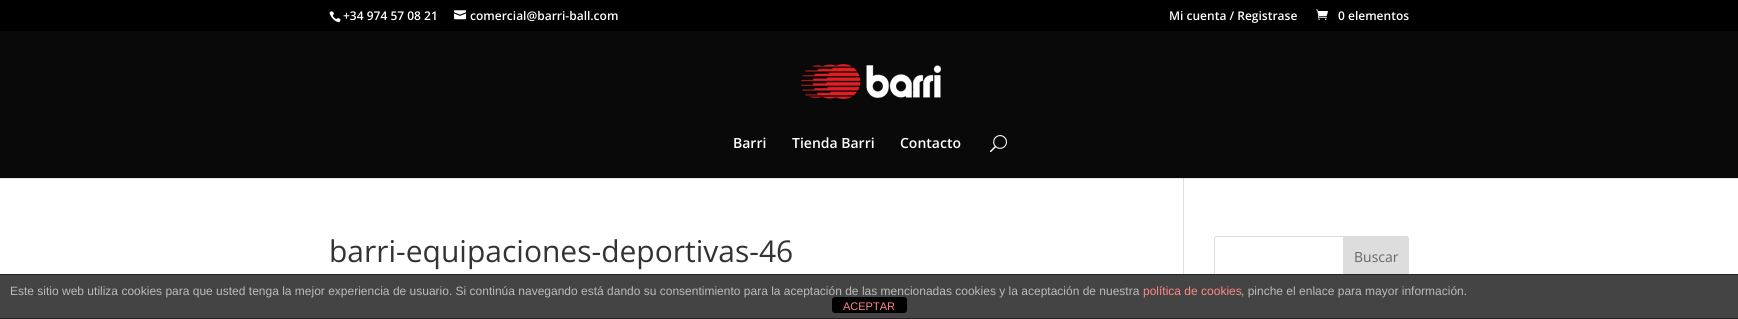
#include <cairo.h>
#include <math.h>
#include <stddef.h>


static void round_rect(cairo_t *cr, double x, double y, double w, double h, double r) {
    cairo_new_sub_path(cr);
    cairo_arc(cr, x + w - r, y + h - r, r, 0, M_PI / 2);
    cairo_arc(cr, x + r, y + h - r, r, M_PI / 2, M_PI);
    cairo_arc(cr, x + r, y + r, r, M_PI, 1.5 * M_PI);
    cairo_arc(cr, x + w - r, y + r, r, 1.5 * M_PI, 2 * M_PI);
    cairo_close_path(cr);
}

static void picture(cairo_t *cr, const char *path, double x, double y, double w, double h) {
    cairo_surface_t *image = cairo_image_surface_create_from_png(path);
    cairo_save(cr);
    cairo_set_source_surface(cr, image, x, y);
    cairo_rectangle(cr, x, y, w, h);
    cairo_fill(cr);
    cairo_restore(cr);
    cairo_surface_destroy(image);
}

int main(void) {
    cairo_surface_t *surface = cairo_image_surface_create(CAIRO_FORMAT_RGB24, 1738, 319);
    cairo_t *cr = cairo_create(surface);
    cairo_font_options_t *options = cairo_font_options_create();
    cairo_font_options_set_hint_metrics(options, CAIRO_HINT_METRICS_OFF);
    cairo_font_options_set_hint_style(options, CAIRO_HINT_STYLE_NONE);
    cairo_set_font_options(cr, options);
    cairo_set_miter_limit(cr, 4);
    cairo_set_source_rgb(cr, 0, 0, 0);
    cairo_paint(cr);
    picture(cr, "img1.png", 329, 11, 12, 12);
    cairo_select_font_face(cr, "Open Sans SemiBold", CAIRO_FONT_SLANT_NORMAL, CAIRO_FONT_WEIGHT_NORMAL);
    cairo_set_font_size(cr, 12);
    cairo_set_source_rgb(cr, 1, 1, 1);
    cairo_move_to(cr, 343, 20);
    cairo_show_text(cr, "+34 974 57 08 21");
    picture(cr, "img2.png", 454, 10, 12, 10);
    cairo_move_to(cr, 470, 20);
    cairo_show_text(cr, "comercial@barri-ball.com");
    cairo_move_to(cr, 1169, 20);
    cairo_show_text(cr, "Mi cuenta / Registrase");
    picture(cr, "img3.png", 1316, 9, 12, 11);
    cairo_move_to(cr, 1338, 20);
    cairo_show_text(cr, "0 elementos");
    cairo_set_source_rgb(cr, 0.039, 0.039, 0.039);
    cairo_rectangle(cr, 0, 31, 1738, 147);
    cairo_fill(cr);
    picture(cr, "img4.png", 801, 64, 140, 35);
    cairo_set_font_size(cr, 14);
    cairo_set_source_rgb(cr, 1, 1, 1);
    cairo_move_to(cr, 733, 148);
    cairo_show_text(cr, "Barri");
    cairo_move_to(cr, 792, 148);
    cairo_show_text(cr, "Tienda Barri");
    cairo_move_to(cr, 900, 148);
    cairo_show_text(cr, "Contacto");
    picture(cr, "img5.png", 990, 135, 17, 18);
    cairo_rectangle(cr, 0, 179, 1738, 95);
    cairo_fill(cr);
    cairo_set_source_rgb(cr, 0.902, 0.902, 0.902);
    cairo_rectangle(cr, 0, 178, 1738, 1);
    cairo_fill(cr);
    cairo_set_source_rgb(cr, 0.886, 0.886, 0.886);
    cairo_rectangle(cr, 1183, 178, 1, 96);
    cairo_fill(cr);
    cairo_set_source_rgb(cr, 0.796, 0.796, 0.796);
    cairo_rectangle(cr, 1183, 178, 1, 1);
    cairo_fill(cr);
    cairo_select_font_face(cr, "Open Sans", CAIRO_FONT_SLANT_NORMAL, CAIRO_FONT_WEIGHT_NORMAL);
    cairo_set_font_size(cr, 30);
    cairo_set_source_rgb(cr, 0.2, 0.2, 0.2);
    cairo_move_to(cr, 329, 262);
    cairo_show_text(cr, "barri-equipaciones-deportivas-46");
    round_rect(cr, 1214.5, 236.5, 194, 39, 2.5);
    cairo_set_source_rgb(cr, 0.867, 0.867, 0.867);
    cairo_set_line_width(cr, 1);
    cairo_stroke(cr);
    cairo_new_path(cr);
    cairo_move_to(cr, 1343.5, 236.5);
    cairo_line_to(cr, 1406, 236.5);
    cairo_curve_to(cr, 1407.5, 236.5, 1408.5, 237.5, 1408.5, 239);
    cairo_line_to(cr, 1408.5, 273);
    cairo_curve_to(cr, 1408.5, 274.5, 1407.5, 275.5, 1406, 275.5);
    cairo_line_to(cr, 1343.5, 275.5);
    cairo_close_path(cr);
    cairo_fill_preserve(cr);
    cairo_stroke(cr);
    cairo_set_font_size(cr, 14);
    cairo_set_source_rgb(cr, 0.4, 0.4, 0.4);
    cairo_move_to(cr, 1354, 262);
    cairo_show_text(cr, "Buscar");
    cairo_set_source_rgb(cr, 0.267, 0.267, 0.267);
    cairo_rectangle(cr, 0, 275, 1738, 43);
    cairo_fill(cr);
    cairo_set_source_rgb(cr, 0.133, 0.133, 0.133);
    cairo_rectangle(cr, 0, 274, 1738, 1);
    cairo_fill(cr);
    cairo_rectangle(cr, 0, 318, 1738, 1);
    cairo_fill(cr);
    cairo_set_source_rgb(cr, 0, 0, 0);
    round_rect(cr, 832, 297, 75, 16, 3);
    cairo_fill(cr);
    cairo_select_font_face(cr, "Liberation Sans", CAIRO_FONT_SLANT_NORMAL, CAIRO_FONT_WEIGHT_NORMAL);
    cairo_set_font_size(cr, 12);
    cairo_set_source_rgb(cr, 0.733, 0.733, 0.733);
    cairo_move_to(cr, 10, 295);
    cairo_show_text(cr, "Este sitio web utiliza cookies para que usted tenga la mejor experiencia de usuario. Si continúa navegando está dando su consentimiento para la aceptación de las mencionadas cookies y la aceptación de nuestra");
    cairo_set_source_rgb(cr, 1, 0.533, 0.533);
    cairo_move_to(cr, 1143, 295);
    cairo_show_text(cr, "política de cookies");
    cairo_set_source_rgb(cr, 0.733, 0.733, 0.733);
    cairo_move_to(cr, 1241, 295);
    cairo_show_text(cr, ", pinche el enlace para mayor información.");
    cairo_set_font_size(cr, 11);
    cairo_set_source_rgb(cr, 1, 0.533, 0.533);
    cairo_move_to(cr, 843, 310);
    cairo_show_text(cr, "ACEPTAR");
    cairo_surface_write_to_png(surface, "page.png");
    cairo_font_options_destroy(options);
    cairo_destroy(cr);
    cairo_surface_destroy(surface);
    return 0;
}
